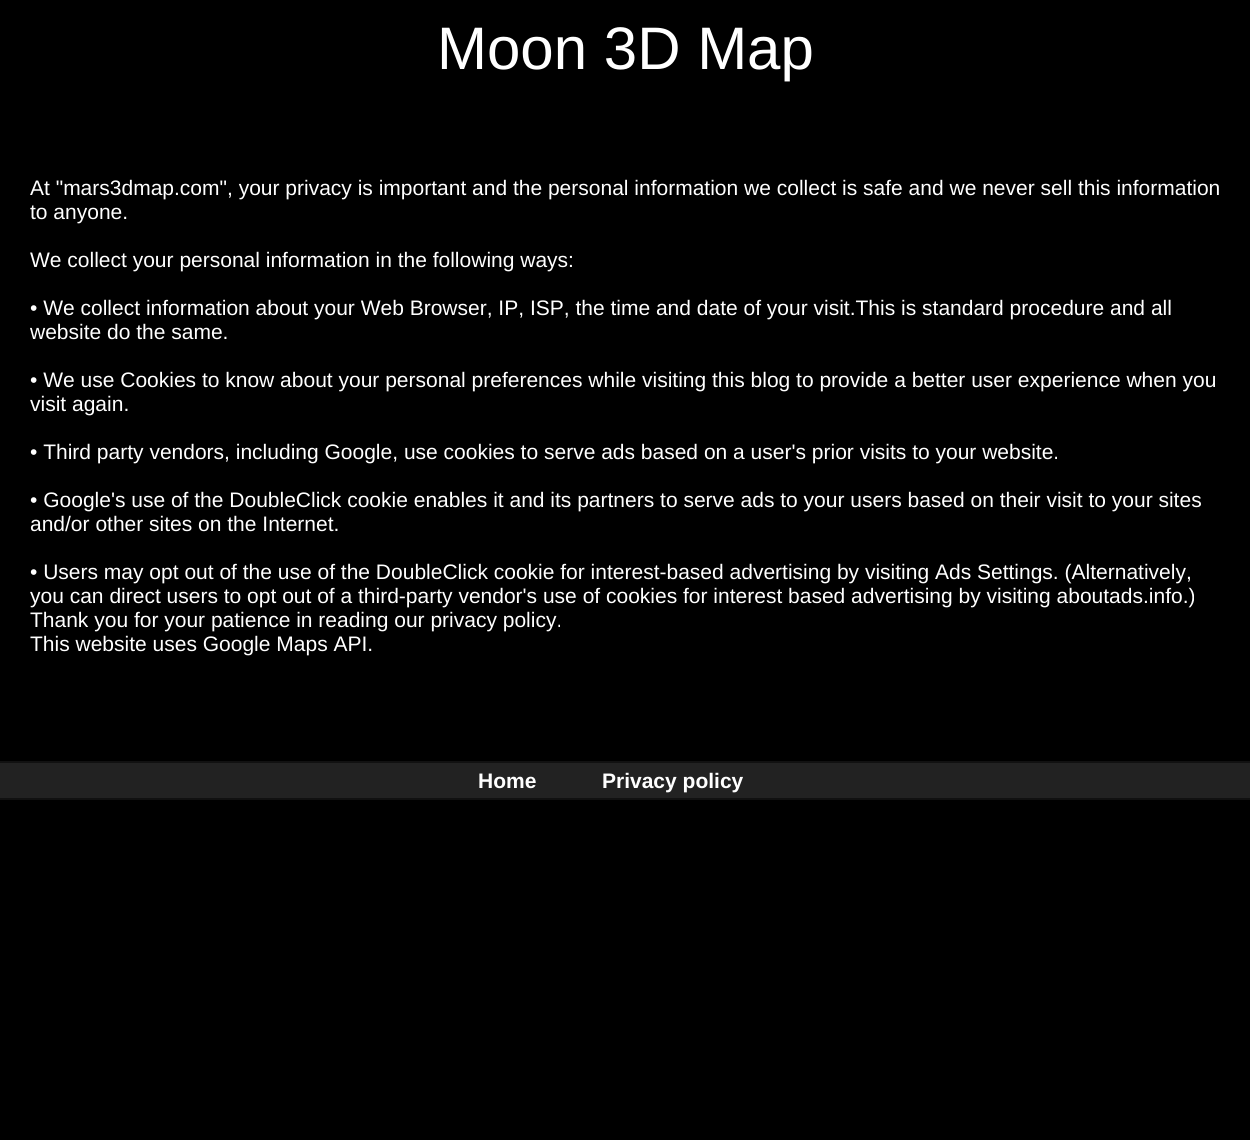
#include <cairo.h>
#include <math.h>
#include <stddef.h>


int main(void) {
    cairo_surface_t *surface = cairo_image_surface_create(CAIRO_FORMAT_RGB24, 1250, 1140);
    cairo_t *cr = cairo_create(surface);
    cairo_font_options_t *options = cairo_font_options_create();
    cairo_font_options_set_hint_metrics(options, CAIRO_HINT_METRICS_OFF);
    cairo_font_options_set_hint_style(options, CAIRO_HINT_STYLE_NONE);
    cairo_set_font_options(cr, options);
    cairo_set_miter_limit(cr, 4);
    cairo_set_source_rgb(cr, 0, 0, 0);
    cairo_paint(cr);
    cairo_select_font_face(cr, "Liberation Sans", CAIRO_FONT_SLANT_NORMAL, CAIRO_FONT_WEIGHT_NORMAL);
    cairo_set_font_size(cr, 60);
    cairo_set_source_rgb(cr, 1, 1, 1);
    cairo_move_to(cr, 437, 69);
    cairo_show_text(cr, "Moon 3D Map");
    cairo_set_font_size(cr, 21);
    cairo_move_to(cr, 30, 195);
    cairo_show_text(cr, "At \"mars3dmap.com\", your privacy is important and the personal information we collect is safe and we never sell this information");
    cairo_move_to(cr, 30, 219);
    cairo_show_text(cr, "to anyone.");
    cairo_move_to(cr, 30, 267);
    cairo_show_text(cr, "We collect your personal information in the following ways:");
    cairo_move_to(cr, 30, 315);
    cairo_show_text(cr, "• We collect information about your Web Browser, IP, ISP, the time and date of your visit.This is standard procedure and all");
    cairo_move_to(cr, 30, 339);
    cairo_show_text(cr, "website do the same.");
    cairo_move_to(cr, 30, 387);
    cairo_show_text(cr, "• We use Cookies to know about your personal preferences while visiting this blog to provide a better user experience when you");
    cairo_move_to(cr, 30, 411);
    cairo_show_text(cr, "visit again.");
    cairo_move_to(cr, 30, 459);
    cairo_show_text(cr, "• Third party vendors, including Google, use cookies to serve ads based on a user's prior visits to your website.");
    cairo_move_to(cr, 30, 507);
    cairo_show_text(cr, "• Google's use of the DoubleClick cookie enables it and its partners to serve ads to your users based on their visit to your sites");
    cairo_move_to(cr, 30, 531);
    cairo_show_text(cr, "and/or other sites on the Internet.");
    cairo_move_to(cr, 30, 579);
    cairo_show_text(cr, "• Users may opt out of the use of the DoubleClick cookie for interest-based advertising by visiting Ads Settings. (Alternatively,");
    cairo_move_to(cr, 30, 603);
    cairo_show_text(cr, "you can direct users to opt out of a third-party vendor's use of cookies for interest based advertising by visiting aboutads.info.)");
    cairo_move_to(cr, 30, 627);
    cairo_show_text(cr, "Thank you for your patience in reading our privacy policy.");
    cairo_move_to(cr, 30, 651);
    cairo_show_text(cr, "This website uses Google Maps API.");
    cairo_set_source_rgb(cr, 0.133, 0.133, 0.133);
    cairo_rectangle(cr, 0, 763, 1250, 35);
    cairo_fill(cr);
    cairo_set_source_rgb(cr, 0.067, 0.067, 0.067);
    cairo_rectangle(cr, 0, 761, 1250, 2);
    cairo_fill(cr);
    cairo_rectangle(cr, 0, 798, 1250, 2);
    cairo_fill(cr);
    cairo_select_font_face(cr, "Liberation Sans", CAIRO_FONT_SLANT_NORMAL, CAIRO_FONT_WEIGHT_BOLD);
    cairo_set_source_rgb(cr, 1, 1, 1);
    cairo_move_to(cr, 478, 788);
    cairo_show_text(cr, "Home");
    cairo_move_to(cr, 602, 788);
    cairo_show_text(cr, "Privacy policy");
    cairo_surface_write_to_png(surface, "page.png");
    cairo_font_options_destroy(options);
    cairo_destroy(cr);
    cairo_surface_destroy(surface);
    return 0;
}
